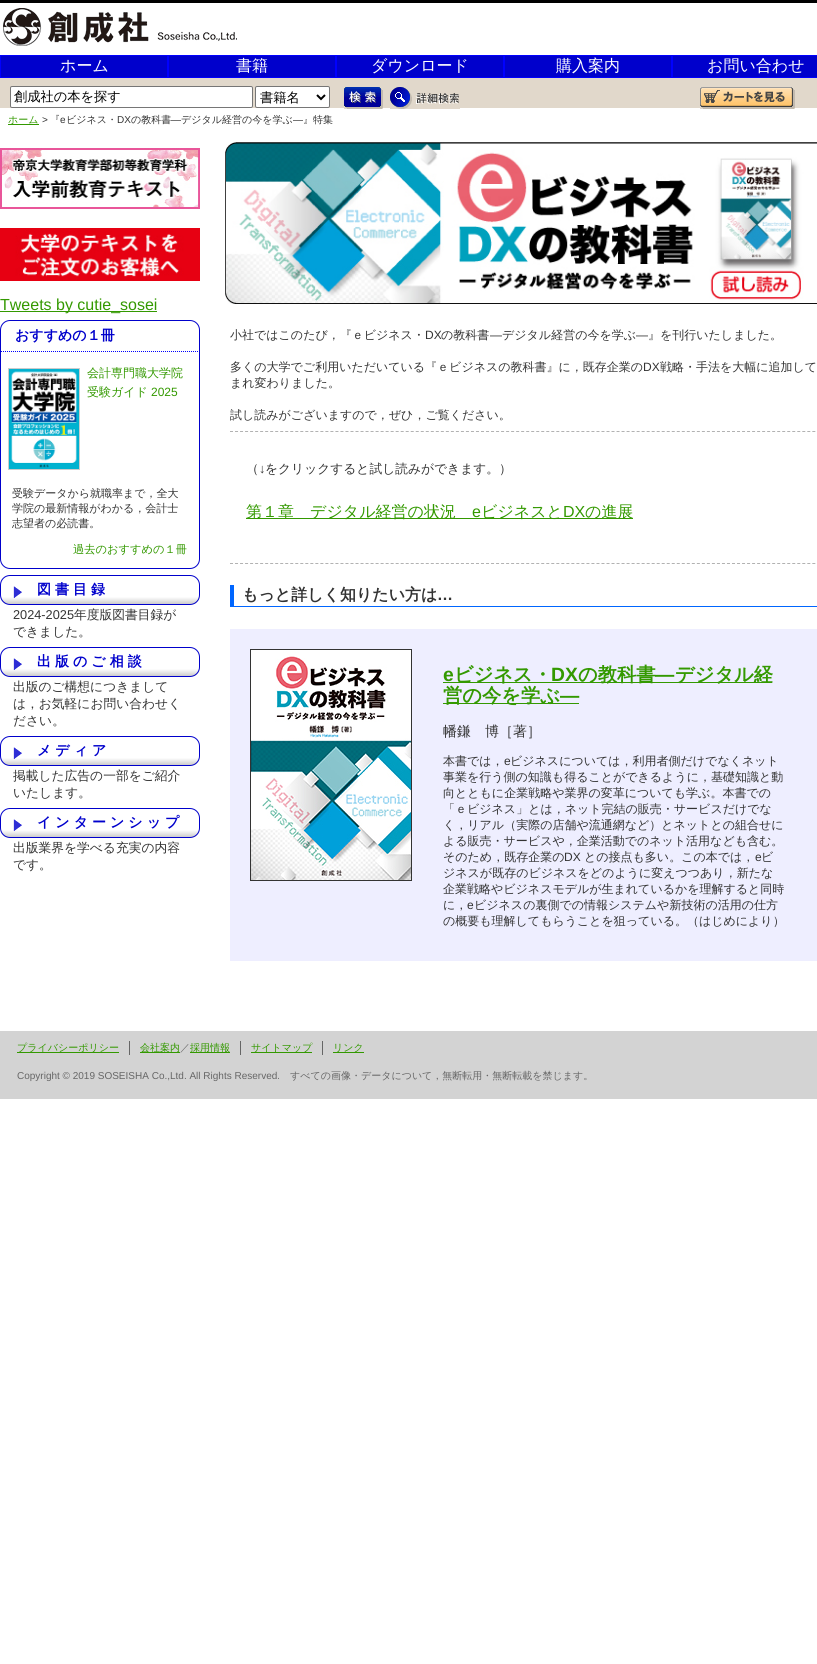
#include <cairo.h>
#include <math.h>
#include <stddef.h>


static void spaced_text(cairo_t *cr, double x, double y, const char *s, double letter, double word) {
    cairo_move_to(cr, x, y);
    while (*s) {
        char ch[5] = {0};
        int n = 0;
        do ch[n++] = *s++; while ((*s & 0xC0) == 0x80);
        cairo_show_text(cr, ch);
        cairo_rel_move_to(cr, letter + word * (*ch == ' '), 0);
    }
}

static void round_rect(cairo_t *cr, double x, double y, double w, double h, double r) {
    cairo_new_sub_path(cr);
    cairo_arc(cr, x + w - r, y + h - r, r, 0, M_PI / 2);
    cairo_arc(cr, x + r, y + h - r, r, M_PI / 2, M_PI);
    cairo_arc(cr, x + r, y + r, r, M_PI, 1.5 * M_PI);
    cairo_arc(cr, x + w - r, y + r, r, 1.5 * M_PI, 2 * M_PI);
    cairo_close_path(cr);
}

static void picture(cairo_t *cr, const char *path, double x, double y, double w, double h) {
    cairo_surface_t *image = cairo_image_surface_create_from_png(path);
    cairo_save(cr);
    cairo_set_source_surface(cr, image, x, y);
    cairo_rectangle(cr, x, y, w, h);
    cairo_fill(cr);
    cairo_restore(cr);
    cairo_surface_destroy(image);
}

int main(void) {
    cairo_surface_t *surface = cairo_image_surface_create(CAIRO_FORMAT_RGB24, 817, 1664);
    cairo_t *cr = cairo_create(surface);
    cairo_font_options_t *options = cairo_font_options_create();
    cairo_font_options_set_hint_metrics(options, CAIRO_HINT_METRICS_OFF);
    cairo_font_options_set_hint_style(options, CAIRO_HINT_STYLE_NONE);
    cairo_set_font_options(cr, options);
    cairo_set_miter_limit(cr, 4);
    cairo_pattern_t *gradient;
    cairo_set_source_rgb(cr, 1, 1, 1);
    cairo_paint(cr);
    cairo_set_source_rgb(cr, 0, 0, 0);
    cairo_rectangle(cr, 0, 0, 817, 3);
    cairo_fill(cr);
    picture(cr, "img1.png", 3, 8, 234, 38);
    cairo_set_source_rgb(cr, 0, 0, 0.8);
    cairo_rectangle(cr, 1, 56, 816, 21);
    cairo_fill(cr);
    cairo_rectangle(cr, 0.5, 55.5, 167, 22);
    cairo_set_source_rgb(cr, 0, 0, 1);
    cairo_set_line_width(cr, 1);
    cairo_stroke(cr);
    cairo_select_font_face(cr, "WenQuanYi Zen Hei Medium", CAIRO_FONT_SLANT_NORMAL, CAIRO_FONT_WEIGHT_NORMAL);
    cairo_set_font_size(cr, 16);
    cairo_set_source_rgb(cr, 1, 1, 1);
    cairo_move_to(cr, 60, 71);
    cairo_show_text(cr, "ホーム");
    cairo_rectangle(cr, 168.5, 55.5, 167, 22);
    cairo_set_source_rgb(cr, 0, 0, 1);
    cairo_stroke(cr);
    cairo_set_source_rgb(cr, 1, 1, 1);
    cairo_move_to(cr, 236, 71);
    cairo_show_text(cr, "書籍");
    cairo_rectangle(cr, 336.5, 55.5, 167, 22);
    cairo_set_source_rgb(cr, 0, 0, 1);
    cairo_stroke(cr);
    cairo_set_source_rgb(cr, 1, 1, 1);
    cairo_move_to(cr, 371, 71);
    cairo_show_text(cr, "ダウンロード");
    cairo_rectangle(cr, 504.5, 55.5, 167, 22);
    cairo_set_source_rgb(cr, 0, 0, 1);
    cairo_stroke(cr);
    cairo_set_source_rgb(cr, 1, 1, 1);
    cairo_move_to(cr, 556, 71);
    cairo_show_text(cr, "購入案内");
    cairo_rectangle(cr, 672.5, 55.5, 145, 22);
    cairo_set_source_rgb(cr, 0, 0, 1);
    cairo_stroke(cr);
    cairo_set_source_rgb(cr, 1, 1, 1);
    cairo_move_to(cr, 707, 71);
    cairo_show_text(cr, "お問い合わせ");
    cairo_set_source_rgb(cr, 0.882, 0.847, 0.796);
    cairo_rectangle(cr, 0, 78, 817, 30);
    cairo_fill(cr);
    cairo_set_source_rgb(cr, 1, 1, 1);
    round_rect(cr, 10.5, 86.5, 242, 21, 1.5);
    cairo_fill_preserve(cr);
    cairo_set_source_rgb(cr, 0.463, 0.463, 0.463);
    cairo_stroke(cr);
    cairo_set_font_size(cr, 13.25);
    cairo_set_source_rgb(cr, 0, 0, 0);
    cairo_move_to(cr, 14, 101);
    cairo_show_text(cr, "創成社の本を探す");
    cairo_set_source_rgb(cr, 1, 1, 1);
    round_rect(cr, 255.5, 86.5, 74, 21, 1.5);
    cairo_fill_preserve(cr);
    cairo_set_source_rgb(cr, 0.463, 0.463, 0.463);
    cairo_stroke(cr);
    cairo_new_path(cr);
    cairo_move_to(cr, 317, 95);
    cairo_line_to(cr, 321, 99);
    cairo_line_to(cr, 325, 95);
    cairo_set_source_rgb(cr, 0, 0, 0);
    cairo_set_line_width(cr, 2);
    cairo_stroke(cr);
    cairo_move_to(cr, 260, 102);
    cairo_show_text(cr, "書籍名");
    picture(cr, "img2.png", 344, 87, 39, 22);
    picture(cr, "img3.png", 390, 87, 70, 22);
    picture(cr, "img4.png", 700, 87, 95, 22);
    cairo_set_font_size(cr, 10);
    cairo_set_source_rgb(cr, 0.2, 0.6, 0);
    cairo_move_to(cr, 8, 123);
    cairo_show_text(cr, "ホーム");
    cairo_rectangle(cr, 8, 124, 31, 1);
    cairo_fill(cr);
    cairo_select_font_face(cr, "Liberation Sans", CAIRO_FONT_SLANT_NORMAL, CAIRO_FONT_WEIGHT_NORMAL);
    cairo_set_source_rgb(cr, 0.2, 0.2, 0.2);
    cairo_move_to(cr, 42, 123);
    cairo_show_text(cr, ">");
    cairo_select_font_face(cr, "WenQuanYi Zen Hei Medium", CAIRO_FONT_SLANT_NORMAL, CAIRO_FONT_WEIGHT_NORMAL);
    cairo_move_to(cr, 50, 123);
    cairo_show_text(cr, "『");
    cairo_select_font_face(cr, "Liberation Sans", CAIRO_FONT_SLANT_NORMAL, CAIRO_FONT_WEIGHT_NORMAL);
    cairo_move_to(cr, 60, 123);
    cairo_show_text(cr, "e");
    cairo_select_font_face(cr, "WenQuanYi Zen Hei Medium", CAIRO_FONT_SLANT_NORMAL, CAIRO_FONT_WEIGHT_NORMAL);
    cairo_move_to(cr, 66, 123);
    cairo_show_text(cr, "ビジネス・");
    cairo_select_font_face(cr, "Liberation Sans", CAIRO_FONT_SLANT_NORMAL, CAIRO_FONT_WEIGHT_NORMAL);
    cairo_move_to(cr, 117, 123);
    cairo_show_text(cr, "DX");
    cairo_select_font_face(cr, "WenQuanYi Zen Hei Medium", CAIRO_FONT_SLANT_NORMAL, CAIRO_FONT_WEIGHT_NORMAL);
    cairo_move_to(cr, 131, 123);
    cairo_show_text(cr, "の教科書");
    cairo_select_font_face(cr, "Liberation Sans", CAIRO_FONT_SLANT_NORMAL, CAIRO_FONT_WEIGHT_NORMAL);
    cairo_move_to(cr, 171, 123);
    cairo_show_text(cr, "―");
    cairo_select_font_face(cr, "WenQuanYi Zen Hei Medium", CAIRO_FONT_SLANT_NORMAL, CAIRO_FONT_WEIGHT_NORMAL);
    cairo_move_to(cr, 181, 123);
    cairo_show_text(cr, "デジタル経営の今を学ぶ");
    cairo_select_font_face(cr, "Liberation Sans", CAIRO_FONT_SLANT_NORMAL, CAIRO_FONT_WEIGHT_NORMAL);
    cairo_move_to(cr, 293, 123);
    cairo_show_text(cr, "―");
    cairo_select_font_face(cr, "WenQuanYi Zen Hei Medium", CAIRO_FONT_SLANT_NORMAL, CAIRO_FONT_WEIGHT_NORMAL);
    cairo_move_to(cr, 303, 123);
    cairo_show_text(cr, "』特集");
    picture(cr, "img5.png", 0, 148, 200, 61);
    picture(cr, "img6.png", 0, 228, 200, 53);
    cairo_set_source_rgb(cr, 0.2, 0.6, 0);
    cairo_rectangle(cr, 0, 311, 157, 1);
    cairo_fill(cr);
    cairo_select_font_face(cr, "Liberation Sans", CAIRO_FONT_SLANT_NORMAL, CAIRO_FONT_WEIGHT_NORMAL);
    cairo_set_font_size(cr, 16);
    cairo_move_to(cr, 0, 310);
    cairo_show_text(cr, "Tweets by cutie_sosei");
    round_rect(cr, 0.5, 320.5, 199, 248, 9.5);
    cairo_set_source_rgb(cr, 0, 0, 0.8);
    cairo_set_line_width(cr, 1);
    cairo_stroke(cr);
    cairo_new_path(cr);
    cairo_move_to(cr, 1, 351.5);
    cairo_line_to(cr, 199, 351.5);
    cairo_set_source_rgb(cr, 0, 0, 1);
    cairo_set_dash(cr, (double[]){1, 1}, 2, 0);
    cairo_stroke(cr);
    cairo_select_font_face(cr, "WenQuanYi Zen Hei", CAIRO_FONT_SLANT_NORMAL, CAIRO_FONT_WEIGHT_BOLD);
    cairo_set_font_size(cr, 14);
    cairo_set_source_rgb(cr, 0, 0, 0.8);
    cairo_move_to(cr, 15, 340);
    cairo_show_text(cr, "おすすめの１冊");
    cairo_rectangle(cr, 8.5, 368.5, 71, 101);
    cairo_set_source_rgb(cr, 0.8, 0.8, 0.8);
    cairo_set_dash(cr, NULL, 0, 0);
    cairo_stroke(cr);
    picture(cr, "img7.png", 9, 369, 70, 100);
    cairo_select_font_face(cr, "WenQuanYi Zen Hei Medium", CAIRO_FONT_SLANT_NORMAL, CAIRO_FONT_WEIGHT_NORMAL);
    cairo_set_font_size(cr, 12);
    cairo_set_source_rgb(cr, 0.2, 0.6, 0);
    cairo_move_to(cr, 87, 377);
    cairo_show_text(cr, "会計専門職大学院");
    cairo_move_to(cr, 87, 396);
    cairo_show_text(cr, "受験ガイド");
    cairo_select_font_face(cr, "Liberation Sans", CAIRO_FONT_SLANT_NORMAL, CAIRO_FONT_WEIGHT_NORMAL);
    cairo_move_to(cr, 151, 396);
    cairo_show_text(cr, "2025");
    cairo_select_font_face(cr, "WenQuanYi Zen Hei Medium", CAIRO_FONT_SLANT_NORMAL, CAIRO_FONT_WEIGHT_NORMAL);
    cairo_set_font_size(cr, 11);
    cairo_set_source_rgb(cr, 0.2, 0.2, 0.2);
    cairo_move_to(cr, 12, 497);
    cairo_show_text(cr, "受験データから就職率まで，全大");
    cairo_move_to(cr, 12, 512);
    cairo_show_text(cr, "学院の最新情報がわかる，会計士");
    cairo_move_to(cr, 12, 527);
    cairo_show_text(cr, "志望者の必読書。");
    cairo_set_font_size(cr, 11.25);
    cairo_set_source_rgb(cr, 0.2, 0.6, 0);
    cairo_move_to(cr, 73, 553);
    cairo_show_text(cr, "過去のおすすめの１冊");
    cairo_save(cr);
    round_rect(cr, 0, 575, 200, 30, 10);
    cairo_clip(cr);
    gradient = cairo_pattern_create_linear(100, 576, 100, 604);
    cairo_pattern_add_color_stop_rgba(gradient, 0, 1, 1, 1, 1);
    cairo_pattern_add_color_stop_rgba(gradient, 0.75, 1, 1, 1, 1);
    cairo_pattern_add_color_stop_rgba(gradient, 1, 0.8, 0.8, 0.8, 1);
    cairo_set_source(cr, gradient);
    cairo_pattern_destroy(gradient);
    cairo_rectangle(cr, 0, 576, 200, 28);
    cairo_fill(cr);
    cairo_restore(cr);
    round_rect(cr, 0.5, 575.5, 199, 29, 9.5);
    cairo_set_source_rgb(cr, 0, 0, 0.8);
    cairo_stroke(cr);
    picture(cr, "img8.png", 13, 586, 9, 12);
    cairo_select_font_face(cr, "WenQuanYi Zen Hei", CAIRO_FONT_SLANT_NORMAL, CAIRO_FONT_WEIGHT_BOLD);
    cairo_set_font_size(cr, 14);
    spaced_text(cr, 37, 594, "図書目録", 4, 0);
    cairo_select_font_face(cr, "Liberation Sans", CAIRO_FONT_SLANT_NORMAL, CAIRO_FONT_WEIGHT_NORMAL);
    cairo_set_font_size(cr, 12.75);
    cairo_set_source_rgb(cr, 0.2, 0.2, 0.2);
    cairo_move_to(cr, 13, 619);
    cairo_show_text(cr, "2024-2025");
    cairo_select_font_face(cr, "WenQuanYi Zen Hei Medium", CAIRO_FONT_SLANT_NORMAL, CAIRO_FONT_WEIGHT_NORMAL);
    cairo_move_to(cr, 74, 619);
    cairo_show_text(cr, "年度版図書目録が");
    cairo_move_to(cr, 13, 636);
    cairo_show_text(cr, "できました。");
    cairo_save(cr);
    round_rect(cr, 0, 647, 200, 30, 10);
    cairo_clip(cr);
    gradient = cairo_pattern_create_linear(100, 648, 100, 676);
    cairo_pattern_add_color_stop_rgba(gradient, 0, 1, 1, 1, 1);
    cairo_pattern_add_color_stop_rgba(gradient, 0.75, 1, 1, 1, 1);
    cairo_pattern_add_color_stop_rgba(gradient, 1, 0.8, 0.8, 0.8, 1);
    cairo_set_source(cr, gradient);
    cairo_pattern_destroy(gradient);
    cairo_rectangle(cr, 0, 648, 200, 28);
    cairo_fill(cr);
    cairo_restore(cr);
    round_rect(cr, 0.5, 647.5, 199, 29, 9.5);
    cairo_set_source_rgb(cr, 0, 0, 0.8);
    cairo_stroke(cr);
    picture(cr, "img8.png", 13, 658, 9, 12);
    cairo_select_font_face(cr, "WenQuanYi Zen Hei", CAIRO_FONT_SLANT_NORMAL, CAIRO_FONT_WEIGHT_BOLD);
    cairo_set_font_size(cr, 14);
    spaced_text(cr, 37, 666, "出版のご相談", 4, 0);
    cairo_select_font_face(cr, "WenQuanYi Zen Hei Medium", CAIRO_FONT_SLANT_NORMAL, CAIRO_FONT_WEIGHT_NORMAL);
    cairo_set_font_size(cr, 12.75);
    cairo_set_source_rgb(cr, 0.2, 0.2, 0.2);
    cairo_move_to(cr, 13, 691);
    cairo_show_text(cr, "出版のご構想につきまして");
    cairo_move_to(cr, 13, 708);
    cairo_show_text(cr, "は，お気軽にお問い合わせく");
    cairo_move_to(cr, 13, 725);
    cairo_show_text(cr, "ださい。");
    cairo_save(cr);
    round_rect(cr, 0, 736, 200, 30, 10);
    cairo_clip(cr);
    gradient = cairo_pattern_create_linear(100, 737, 100, 765);
    cairo_pattern_add_color_stop_rgba(gradient, 0, 1, 1, 1, 1);
    cairo_pattern_add_color_stop_rgba(gradient, 0.75, 1, 1, 1, 1);
    cairo_pattern_add_color_stop_rgba(gradient, 1, 0.8, 0.8, 0.8, 1);
    cairo_set_source(cr, gradient);
    cairo_pattern_destroy(gradient);
    cairo_rectangle(cr, 0, 737, 200, 28);
    cairo_fill(cr);
    cairo_restore(cr);
    round_rect(cr, 0.5, 736.5, 199, 29, 9.5);
    cairo_set_source_rgb(cr, 0, 0, 0.8);
    cairo_stroke(cr);
    picture(cr, "img8.png", 13, 747, 9, 12);
    cairo_select_font_face(cr, "WenQuanYi Zen Hei", CAIRO_FONT_SLANT_NORMAL, CAIRO_FONT_WEIGHT_BOLD);
    cairo_set_font_size(cr, 14);
    spaced_text(cr, 37, 755, "メディア", 4, 0);
    cairo_select_font_face(cr, "WenQuanYi Zen Hei Medium", CAIRO_FONT_SLANT_NORMAL, CAIRO_FONT_WEIGHT_NORMAL);
    cairo_set_font_size(cr, 12.75);
    cairo_set_source_rgb(cr, 0.2, 0.2, 0.2);
    cairo_move_to(cr, 13, 780);
    cairo_show_text(cr, "掲載した広告の一部をご紹介");
    cairo_move_to(cr, 13, 797);
    cairo_show_text(cr, "いたします。");
    cairo_save(cr);
    round_rect(cr, 0, 808, 200, 30, 10);
    cairo_clip(cr);
    gradient = cairo_pattern_create_linear(100, 809, 100, 837);
    cairo_pattern_add_color_stop_rgba(gradient, 0, 1, 1, 1, 1);
    cairo_pattern_add_color_stop_rgba(gradient, 0.75, 1, 1, 1, 1);
    cairo_pattern_add_color_stop_rgba(gradient, 1, 0.8, 0.8, 0.8, 1);
    cairo_set_source(cr, gradient);
    cairo_pattern_destroy(gradient);
    cairo_rectangle(cr, 0, 809, 200, 28);
    cairo_fill(cr);
    cairo_restore(cr);
    round_rect(cr, 0.5, 808.5, 199, 29, 9.5);
    cairo_set_source_rgb(cr, 0, 0, 0.8);
    cairo_stroke(cr);
    picture(cr, "img8.png", 13, 819, 9, 12);
    cairo_select_font_face(cr, "WenQuanYi Zen Hei", CAIRO_FONT_SLANT_NORMAL, CAIRO_FONT_WEIGHT_BOLD);
    cairo_set_font_size(cr, 14);
    spaced_text(cr, 37, 827, "インターンシップ", 4, 0);
    cairo_select_font_face(cr, "WenQuanYi Zen Hei Medium", CAIRO_FONT_SLANT_NORMAL, CAIRO_FONT_WEIGHT_NORMAL);
    cairo_set_font_size(cr, 12.75);
    cairo_set_source_rgb(cr, 0.2, 0.2, 0.2);
    cairo_move_to(cr, 13, 852);
    cairo_show_text(cr, "出版業界を学べる充実の内容");
    cairo_move_to(cr, 13, 869);
    cairo_show_text(cr, "です。");
    picture(cr, "img9.png", 225, 142, 592, 162);
    cairo_set_font_size(cr, 12);
    cairo_move_to(cr, 230, 339);
    cairo_show_text(cr, "小社ではこのたび，『ｅビジネス・");
    cairo_select_font_face(cr, "Liberation Sans", CAIRO_FONT_SLANT_NORMAL, CAIRO_FONT_WEIGHT_NORMAL);
    cairo_move_to(cr, 425, 339);
    cairo_show_text(cr, "DX");
    cairo_select_font_face(cr, "WenQuanYi Zen Hei Medium", CAIRO_FONT_SLANT_NORMAL, CAIRO_FONT_WEIGHT_NORMAL);
    cairo_move_to(cr, 441, 339);
    cairo_show_text(cr, "の教科書");
    cairo_select_font_face(cr, "Liberation Sans", CAIRO_FONT_SLANT_NORMAL, CAIRO_FONT_WEIGHT_NORMAL);
    cairo_move_to(cr, 490, 339);
    cairo_show_text(cr, "―");
    cairo_select_font_face(cr, "WenQuanYi Zen Hei Medium", CAIRO_FONT_SLANT_NORMAL, CAIRO_FONT_WEIGHT_NORMAL);
    cairo_move_to(cr, 502, 339);
    cairo_show_text(cr, "デジタル経営の今を学ぶ");
    cairo_select_font_face(cr, "Liberation Sans", CAIRO_FONT_SLANT_NORMAL, CAIRO_FONT_WEIGHT_NORMAL);
    cairo_move_to(cr, 636, 339);
    cairo_show_text(cr, "―");
    cairo_select_font_face(cr, "WenQuanYi Zen Hei Medium", CAIRO_FONT_SLANT_NORMAL, CAIRO_FONT_WEIGHT_NORMAL);
    cairo_move_to(cr, 648, 339);
    cairo_show_text(cr, "』を刊行いたしました。");
    cairo_move_to(cr, 230, 371);
    cairo_show_text(cr, "多くの大学でご利用いただいている『ｅビジネスの教科書』に，既存企業の");
    cairo_select_font_face(cr, "Liberation Sans", CAIRO_FONT_SLANT_NORMAL, CAIRO_FONT_WEIGHT_NORMAL);
    cairo_move_to(cr, 643, 371);
    cairo_show_text(cr, "DX");
    cairo_select_font_face(cr, "WenQuanYi Zen Hei Medium", CAIRO_FONT_SLANT_NORMAL, CAIRO_FONT_WEIGHT_NORMAL);
    cairo_move_to(cr, 660, 371);
    cairo_show_text(cr, "戦略・手法を大幅に追加して");
    cairo_move_to(cr, 230, 387);
    cairo_show_text(cr, "まれ変わりました。");
    cairo_move_to(cr, 230, 419);
    cairo_show_text(cr, "試し読みがございますので，ぜひ，ご覧ください。");
    cairo_new_path(cr);
    cairo_move_to(cr, 230, 431.5);
    cairo_line_to(cr, 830, 431.5);
    cairo_set_source_rgb(cr, 0.698, 0.698, 0.698);
    cairo_set_dash(cr, (double[]){3, 2.02}, 2, 0);
    cairo_stroke(cr);
    cairo_new_path(cr);
    cairo_move_to(cr, 230, 563.5);
    cairo_line_to(cr, 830, 563.5);
    cairo_stroke(cr);
    cairo_set_font_size(cr, 12.75);
    cairo_set_source_rgb(cr, 0.2, 0.2, 0.2);
    cairo_move_to(cr, 246, 473);
    cairo_show_text(cr, "（");
    cairo_select_font_face(cr, "Liberation Sans", CAIRO_FONT_SLANT_NORMAL, CAIRO_FONT_WEIGHT_NORMAL);
    cairo_move_to(cr, 259, 473);
    cairo_show_text(cr, "↓");
    cairo_select_font_face(cr, "WenQuanYi Zen Hei Medium", CAIRO_FONT_SLANT_NORMAL, CAIRO_FONT_WEIGHT_NORMAL);
    cairo_move_to(cr, 265, 473);
    cairo_show_text(cr, "をクリックすると試し読みができます。）");
    cairo_set_source_rgb(cr, 0.2, 0.6, 0);
    cairo_rectangle(cr, 246, 518, 387, 1);
    cairo_fill(cr);
    cairo_set_font_size(cr, 16);
    cairo_move_to(cr, 246, 517);
    cairo_show_text(cr, "第１章　デジタル経営の状況");
    cairo_select_font_face(cr, "Liberation Sans", CAIRO_FONT_SLANT_NORMAL, CAIRO_FONT_WEIGHT_NORMAL);
    cairo_move_to(cr, 472, 517);
    cairo_show_text(cr, "e");
    cairo_select_font_face(cr, "WenQuanYi Zen Hei Medium", CAIRO_FONT_SLANT_NORMAL, CAIRO_FONT_WEIGHT_NORMAL);
    cairo_move_to(cr, 481, 517);
    cairo_show_text(cr, "ビジネスと");
    cairo_select_font_face(cr, "Liberation Sans", CAIRO_FONT_SLANT_NORMAL, CAIRO_FONT_WEIGHT_NORMAL);
    cairo_move_to(cr, 563, 517);
    cairo_show_text(cr, "DX");
    cairo_select_font_face(cr, "WenQuanYi Zen Hei Medium", CAIRO_FONT_SLANT_NORMAL, CAIRO_FONT_WEIGHT_NORMAL);
    cairo_move_to(cr, 585, 517);
    cairo_show_text(cr, "の進展");
    cairo_set_source_rgb(cr, 0, 0.4, 1);
    cairo_rectangle(cr, 230, 606, 587, 1);
    cairo_fill(cr);
    cairo_rectangle(cr, 230, 585, 4, 22);
    cairo_fill(cr);
    cairo_select_font_face(cr, "WenQuanYi Zen Hei", CAIRO_FONT_SLANT_NORMAL, CAIRO_FONT_WEIGHT_BOLD);
    cairo_set_source_rgb(cr, 0.2, 0.2, 0.2);
    cairo_move_to(cr, 242, 600);
    cairo_show_text(cr, "もっと詳しく知りたい方は");
    cairo_select_font_face(cr, "Liberation Sans", CAIRO_FONT_SLANT_NORMAL, CAIRO_FONT_WEIGHT_BOLD);
    cairo_move_to(cr, 437, 600);
    cairo_show_text(cr, "…");
    cairo_set_source_rgb(cr, 0.933, 0.933, 1);
    cairo_rectangle(cr, 230, 629, 587, 332);
    cairo_fill(cr);
    cairo_rectangle(cr, 250.5, 649.5, 161, 231);
    cairo_set_source_rgb(cr, 0.2, 0.2, 0.2);
    cairo_set_dash(cr, NULL, 0, 0);
    cairo_stroke(cr);
    picture(cr, "img10.png", 251, 650, 160, 230);
    cairo_set_font_size(cr, 19.25);
    cairo_set_source_rgb(cr, 0.2, 0.6, 0);
    cairo_move_to(cr, 443, 681);
    cairo_show_text(cr, "e");
    cairo_rectangle(cr, 443, 682, 329, 1);
    cairo_fill(cr);
    cairo_select_font_face(cr, "WenQuanYi Zen Hei", CAIRO_FONT_SLANT_NORMAL, CAIRO_FONT_WEIGHT_BOLD);
    cairo_move_to(cr, 454, 681);
    cairo_show_text(cr, "ビジネス・");
    cairo_select_font_face(cr, "Liberation Sans", CAIRO_FONT_SLANT_NORMAL, CAIRO_FONT_WEIGHT_BOLD);
    cairo_move_to(cr, 551, 681);
    cairo_show_text(cr, "DX");
    cairo_select_font_face(cr, "WenQuanYi Zen Hei", CAIRO_FONT_SLANT_NORMAL, CAIRO_FONT_WEIGHT_BOLD);
    cairo_move_to(cr, 578, 681);
    cairo_show_text(cr, "の教科書");
    cairo_select_font_face(cr, "Liberation Sans", CAIRO_FONT_SLANT_NORMAL, CAIRO_FONT_WEIGHT_BOLD);
    cairo_move_to(cr, 655, 681);
    cairo_show_text(cr, "―");
    cairo_select_font_face(cr, "WenQuanYi Zen Hei", CAIRO_FONT_SLANT_NORMAL, CAIRO_FONT_WEIGHT_BOLD);
    cairo_move_to(cr, 675, 681);
    cairo_show_text(cr, "デジタル経");
    cairo_rectangle(cr, 443, 703, 136, 1);
    cairo_fill(cr);
    cairo_move_to(cr, 443, 702);
    cairo_show_text(cr, "営の今を学ぶ");
    cairo_select_font_face(cr, "Liberation Sans", CAIRO_FONT_SLANT_NORMAL, CAIRO_FONT_WEIGHT_BOLD);
    cairo_move_to(cr, 560, 702);
    cairo_show_text(cr, "―");
    cairo_select_font_face(cr, "WenQuanYi Zen Hei Medium", CAIRO_FONT_SLANT_NORMAL, CAIRO_FONT_WEIGHT_NORMAL);
    cairo_set_font_size(cr, 14);
    cairo_set_source_rgb(cr, 0.2, 0.2, 0.2);
    cairo_move_to(cr, 443, 736);
    cairo_show_text(cr, "幡鎌　博［著］");
    cairo_set_font_size(cr, 12);
    cairo_move_to(cr, 443, 765);
    cairo_show_text(cr, "本書では，");
    cairo_select_font_face(cr, "Liberation Sans", CAIRO_FONT_SLANT_NORMAL, CAIRO_FONT_WEIGHT_NORMAL);
    cairo_move_to(cr, 504, 765);
    cairo_show_text(cr, "e");
    cairo_select_font_face(cr, "WenQuanYi Zen Hei Medium", CAIRO_FONT_SLANT_NORMAL, CAIRO_FONT_WEIGHT_NORMAL);
    cairo_move_to(cr, 510, 765);
    cairo_show_text(cr, "ビジネスについては，利用者側だけでなくネット");
    cairo_move_to(cr, 443, 781);
    cairo_show_text(cr, "事業を行う側の知識も得ることができるように，基礎知識と動");
    cairo_move_to(cr, 443, 797);
    cairo_show_text(cr, "向とともに企業戦略や業界の変革についても学ぶ。本書での");
    cairo_move_to(cr, 443, 813);
    cairo_show_text(cr, "「ｅビジネス」とは，ネット完結の販売・サービスだけでな");
    cairo_move_to(cr, 443, 829);
    cairo_show_text(cr, "く，リアル（実際の店舗や流通網など）とネットとの組合せに");
    cairo_move_to(cr, 443, 845);
    cairo_show_text(cr, "よる販売・サービスや，企業活動でのネット活用なども含む。");
    cairo_move_to(cr, 443, 861);
    cairo_show_text(cr, "そのため，既存企業の");
    cairo_select_font_face(cr, "Liberation Sans", CAIRO_FONT_SLANT_NORMAL, CAIRO_FONT_WEIGHT_NORMAL);
    cairo_move_to(cr, 564, 861);
    cairo_show_text(cr, "DX");
    cairo_select_font_face(cr, "WenQuanYi Zen Hei Medium", CAIRO_FONT_SLANT_NORMAL, CAIRO_FONT_WEIGHT_NORMAL);
    cairo_move_to(cr, 584, 861);
    cairo_show_text(cr, "との接点も多い。この本では，");
    cairo_select_font_face(cr, "Liberation Sans", CAIRO_FONT_SLANT_NORMAL, CAIRO_FONT_WEIGHT_NORMAL);
    cairo_move_to(cr, 755, 861);
    cairo_show_text(cr, "e");
    cairo_select_font_face(cr, "WenQuanYi Zen Hei Medium", CAIRO_FONT_SLANT_NORMAL, CAIRO_FONT_WEIGHT_NORMAL);
    cairo_move_to(cr, 761, 861);
    cairo_show_text(cr, "ビ");
    cairo_move_to(cr, 443, 877);
    cairo_show_text(cr, "ジネスが既存のビジネスをどのように変えつつあり，新たな");
    cairo_move_to(cr, 443, 893);
    cairo_show_text(cr, "企業戦略やビジネスモデルが生まれているかを理解すると同時");
    cairo_move_to(cr, 443, 909);
    cairo_show_text(cr, "に，");
    cairo_select_font_face(cr, "Liberation Sans", CAIRO_FONT_SLANT_NORMAL, CAIRO_FONT_WEIGHT_NORMAL);
    cairo_move_to(cr, 467, 909);
    cairo_show_text(cr, "e");
    cairo_select_font_face(cr, "WenQuanYi Zen Hei Medium", CAIRO_FONT_SLANT_NORMAL, CAIRO_FONT_WEIGHT_NORMAL);
    cairo_move_to(cr, 474, 909);
    cairo_show_text(cr, "ビジネスの裏側での情報システムや新技術の活用の仕方");
    cairo_move_to(cr, 443, 925);
    cairo_show_text(cr, "の概要も理解してもらうことを狙っている。（はじめにより）");
    cairo_set_source_rgb(cr, 0.827, 0.827, 0.827);
    cairo_rectangle(cr, 0, 1031, 817, 68);
    cairo_fill(cr);
    cairo_set_source_rgb(cr, 0.4, 0.4, 0.4);
    cairo_rectangle(cr, 129, 1041, 1, 14);
    cairo_fill(cr);
    cairo_set_source_rgb(cr, 0.2, 0.6, 0);
    cairo_rectangle(cr, 17, 1052, 102, 1);
    cairo_fill(cr);
    cairo_set_font_size(cr, 10);
    cairo_move_to(cr, 17, 1051);
    cairo_show_text(cr, "プライバシーポリシー");
    cairo_set_source_rgb(cr, 0.4, 0.4, 0.4);
    cairo_rectangle(cr, 240, 1041, 1, 14);
    cairo_fill(cr);
    cairo_set_source_rgb(cr, 0.2, 0.6, 0);
    cairo_rectangle(cr, 140, 1052, 40, 1);
    cairo_fill(cr);
    cairo_move_to(cr, 140, 1051);
    cairo_show_text(cr, "会社案内");
    cairo_set_source_rgb(cr, 0.4, 0.4, 0.4);
    cairo_move_to(cr, 180, 1051);
    cairo_show_text(cr, "／");
    cairo_set_source_rgb(cr, 0.2, 0.6, 0);
    cairo_rectangle(cr, 190, 1052, 40, 1);
    cairo_fill(cr);
    cairo_move_to(cr, 190, 1051);
    cairo_show_text(cr, "採用情報");
    cairo_set_source_rgb(cr, 0.4, 0.4, 0.4);
    cairo_rectangle(cr, 322, 1041, 1, 14);
    cairo_fill(cr);
    cairo_set_source_rgb(cr, 0.2, 0.6, 0);
    cairo_rectangle(cr, 251, 1052, 61, 1);
    cairo_fill(cr);
    cairo_move_to(cr, 251, 1051);
    cairo_show_text(cr, "サイトマップ");
    cairo_rectangle(cr, 333, 1052, 31, 1);
    cairo_fill(cr);
    cairo_move_to(cr, 333, 1051);
    cairo_show_text(cr, "リンク");
    cairo_select_font_face(cr, "Liberation Sans", CAIRO_FONT_SLANT_NORMAL, CAIRO_FONT_WEIGHT_NORMAL);
    cairo_set_source_rgb(cr, 0.4, 0.4, 0.4);
    cairo_move_to(cr, 17, 1079);
    cairo_show_text(cr, "Copyright © 2019 SOSEISHA Co.,Ltd. All Rights Reserved.");
    cairo_select_font_face(cr, "WenQuanYi Zen Hei Medium", CAIRO_FONT_SLANT_NORMAL, CAIRO_FONT_WEIGHT_NORMAL);
    cairo_move_to(cr, 290, 1079);
    cairo_show_text(cr, "すべての画像・データについて，無断転用・無断転載を禁じます。");
    cairo_surface_write_to_png(surface, "page.png");
    cairo_font_options_destroy(options);
    cairo_destroy(cr);
    cairo_surface_destroy(surface);
    return 0;
}
